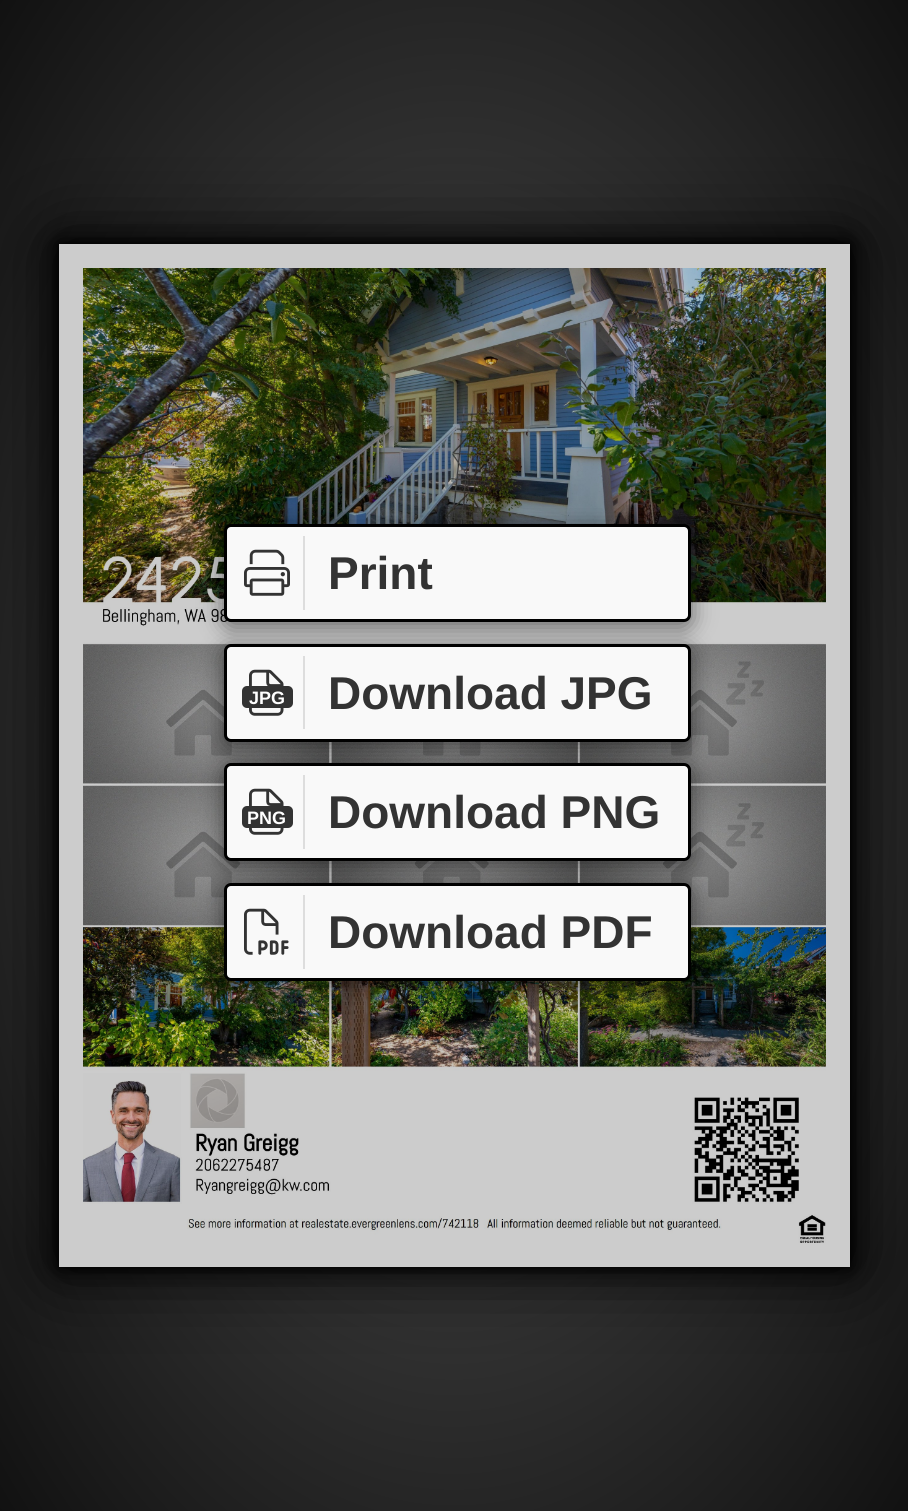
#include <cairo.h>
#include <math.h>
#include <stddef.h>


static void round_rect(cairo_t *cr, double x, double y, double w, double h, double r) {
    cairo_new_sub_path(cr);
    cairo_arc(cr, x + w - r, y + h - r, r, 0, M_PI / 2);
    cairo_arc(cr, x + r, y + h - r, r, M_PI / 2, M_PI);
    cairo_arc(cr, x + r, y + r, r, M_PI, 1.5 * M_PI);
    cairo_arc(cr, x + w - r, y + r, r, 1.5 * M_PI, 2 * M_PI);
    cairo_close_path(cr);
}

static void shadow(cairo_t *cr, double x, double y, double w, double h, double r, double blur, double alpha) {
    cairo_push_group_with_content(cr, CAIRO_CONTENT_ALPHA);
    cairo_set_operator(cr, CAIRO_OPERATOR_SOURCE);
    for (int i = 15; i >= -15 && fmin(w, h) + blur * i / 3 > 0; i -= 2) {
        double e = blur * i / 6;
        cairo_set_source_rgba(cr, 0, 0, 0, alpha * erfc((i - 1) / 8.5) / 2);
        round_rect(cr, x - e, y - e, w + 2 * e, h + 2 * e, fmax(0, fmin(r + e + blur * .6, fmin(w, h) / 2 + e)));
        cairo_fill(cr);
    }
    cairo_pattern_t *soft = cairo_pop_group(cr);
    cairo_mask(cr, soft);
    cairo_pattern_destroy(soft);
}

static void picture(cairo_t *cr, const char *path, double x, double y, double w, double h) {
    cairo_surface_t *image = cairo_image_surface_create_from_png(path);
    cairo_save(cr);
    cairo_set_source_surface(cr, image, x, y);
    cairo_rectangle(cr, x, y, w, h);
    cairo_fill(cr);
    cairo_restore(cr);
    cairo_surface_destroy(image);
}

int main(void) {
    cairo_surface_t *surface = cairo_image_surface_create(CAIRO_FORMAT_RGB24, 908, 1511);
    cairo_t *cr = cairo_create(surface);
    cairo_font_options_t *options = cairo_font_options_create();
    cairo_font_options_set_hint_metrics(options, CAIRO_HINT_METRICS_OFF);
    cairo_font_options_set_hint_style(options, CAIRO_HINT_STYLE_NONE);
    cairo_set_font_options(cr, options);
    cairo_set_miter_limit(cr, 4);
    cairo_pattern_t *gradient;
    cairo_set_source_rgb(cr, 1, 1, 1);
    cairo_paint(cr);
    gradient = cairo_pattern_create_radial(0, 0, 0, 0, 0, 1);
    cairo_pattern_set_matrix(gradient, &(cairo_matrix_t){1.0 / 642, 0, 0, 1.0 / 1068, -1.0 * 454 / 642, -1.0 * 756 / 1068});
    cairo_pattern_add_color_stop_rgba(gradient, 0, 0.533, 0.533, 0.533, 1);
    cairo_pattern_add_color_stop_rgba(gradient, 0.25, 0.333, 0.333, 0.333, 1);
    cairo_pattern_add_color_stop_rgba(gradient, 0.5, 0.2, 0.2, 0.2, 1);
    cairo_pattern_add_color_stop_rgba(gradient, 0.75, 0.133, 0.133, 0.133, 1);
    cairo_pattern_add_color_stop_rgba(gradient, 1, 0.067, 0.067, 0.067, 1);
    cairo_set_source(cr, gradient);
    cairo_pattern_destroy(gradient);
    cairo_rectangle(cr, 0, 0, 908, 1511);
    cairo_fill(cr);
    cairo_set_source_rgb(cr, 0, 0, 0);
    shadow(cr, 59, 244, 791, 1023, 0, 40, 1);
    shadow(cr, 59, 244, 791, 1023, 0, 15, 1);
    shadow(cr, 59, 244, 791, 1023, 0, 5, 1);
    cairo_set_source_rgb(cr, 0.8, 0.8, 0.8);
    cairo_rectangle(cr, 59, 244, 791, 1023);
    cairo_fill(cr);
    picture(cr, "img1.png", 83, 268, 743, 975);
    cairo_set_source_rgb(cr, 0, 0, 0);
    shadow(cr, 224, 529, 467, 98, 7, 11.5, 0.5);
    cairo_set_source_rgb(cr, 0.973, 0.973, 0.973);
    round_rect(cr, 225.5, 525.5, 464, 95, 5.5);
    cairo_fill_preserve(cr);
    cairo_set_source_rgb(cr, 0, 0, 0);
    cairo_set_line_width(cr, 3);
    cairo_stroke(cr);
    cairo_set_source_rgb(cr, 0.867, 0.867, 0.867);
    cairo_rectangle(cr, 303, 536, 2, 74);
    cairo_fill(cr);
    picture(cr, "img2.png", 244, 549, 46, 47);
    cairo_select_font_face(cr, "Liberation Sans", CAIRO_FONT_SLANT_NORMAL, CAIRO_FONT_WEIGHT_BOLD);
    cairo_set_font_size(cr, 46);
    cairo_set_source_rgb(cr, 0.2, 0.2, 0.2);
    cairo_move_to(cr, 328, 589);
    cairo_show_text(cr, "Print");
    cairo_set_source_rgb(cr, 0, 0, 0);
    shadow(cr, 224, 649, 467, 98, 7, 11.5, 0.5);
    cairo_set_source_rgb(cr, 0.973, 0.973, 0.973);
    round_rect(cr, 225.5, 645.5, 464, 95, 5.5);
    cairo_fill_preserve(cr);
    cairo_set_source_rgb(cr, 0, 0, 0);
    cairo_stroke(cr);
    cairo_set_source_rgb(cr, 0.867, 0.867, 0.867);
    cairo_rectangle(cr, 303, 656, 2, 73);
    cairo_fill(cr);
    picture(cr, "img3.png", 249, 669, 35, 47);
    cairo_set_source_rgb(cr, 0.2, 0.2, 0.2);
    round_rect(cr, 242, 686, 51, 22, 5);
    cairo_fill(cr);
    cairo_set_font_size(cr, 18);
    cairo_set_source_rgb(cr, 1, 1, 1);
    cairo_move_to(cr, 249, 704);
    cairo_show_text(cr, "JPG");
    cairo_set_font_size(cr, 46);
    cairo_set_source_rgb(cr, 0.2, 0.2, 0.2);
    cairo_move_to(cr, 328, 709);
    cairo_show_text(cr, "Download JPG");
    cairo_set_source_rgb(cr, 0, 0, 0);
    shadow(cr, 224, 768, 467, 98, 7, 11.5, 0.5);
    cairo_set_source_rgb(cr, 0.973, 0.973, 0.973);
    round_rect(cr, 225.5, 764.5, 464, 95, 5.5);
    cairo_fill_preserve(cr);
    cairo_set_source_rgb(cr, 0, 0, 0);
    cairo_stroke(cr);
    cairo_set_source_rgb(cr, 0.867, 0.867, 0.867);
    cairo_rectangle(cr, 303, 775, 2, 74);
    cairo_fill(cr);
    picture(cr, "img3.png", 249, 788, 35, 47);
    cairo_set_source_rgb(cr, 0.2, 0.2, 0.2);
    round_rect(cr, 242, 806, 51, 22, 5);
    cairo_fill(cr);
    cairo_set_font_size(cr, 18);
    cairo_set_source_rgb(cr, 1, 1, 1);
    cairo_move_to(cr, 247, 824);
    cairo_show_text(cr, "PNG");
    cairo_set_font_size(cr, 46);
    cairo_set_source_rgb(cr, 0.2, 0.2, 0.2);
    cairo_move_to(cr, 328, 828);
    cairo_show_text(cr, "Download PNG");
    cairo_set_source_rgb(cr, 0, 0, 0);
    shadow(cr, 224, 888, 467, 98, 7, 11.5, 0.5);
    cairo_set_source_rgb(cr, 0.973, 0.973, 0.973);
    round_rect(cr, 225.5, 884.5, 464, 95, 5.5);
    cairo_fill_preserve(cr);
    cairo_set_source_rgb(cr, 0, 0, 0);
    cairo_stroke(cr);
    cairo_set_source_rgb(cr, 0.867, 0.867, 0.867);
    cairo_rectangle(cr, 303, 895, 2, 74);
    cairo_fill(cr);
    picture(cr, "img4.png", 244, 908, 45, 47);
    cairo_set_source_rgb(cr, 0.2, 0.2, 0.2);
    cairo_move_to(cr, 328, 948);
    cairo_show_text(cr, "Download PDF");
    cairo_surface_write_to_png(surface, "page.png");
    cairo_font_options_destroy(options);
    cairo_destroy(cr);
    cairo_surface_destroy(surface);
    return 0;
}
